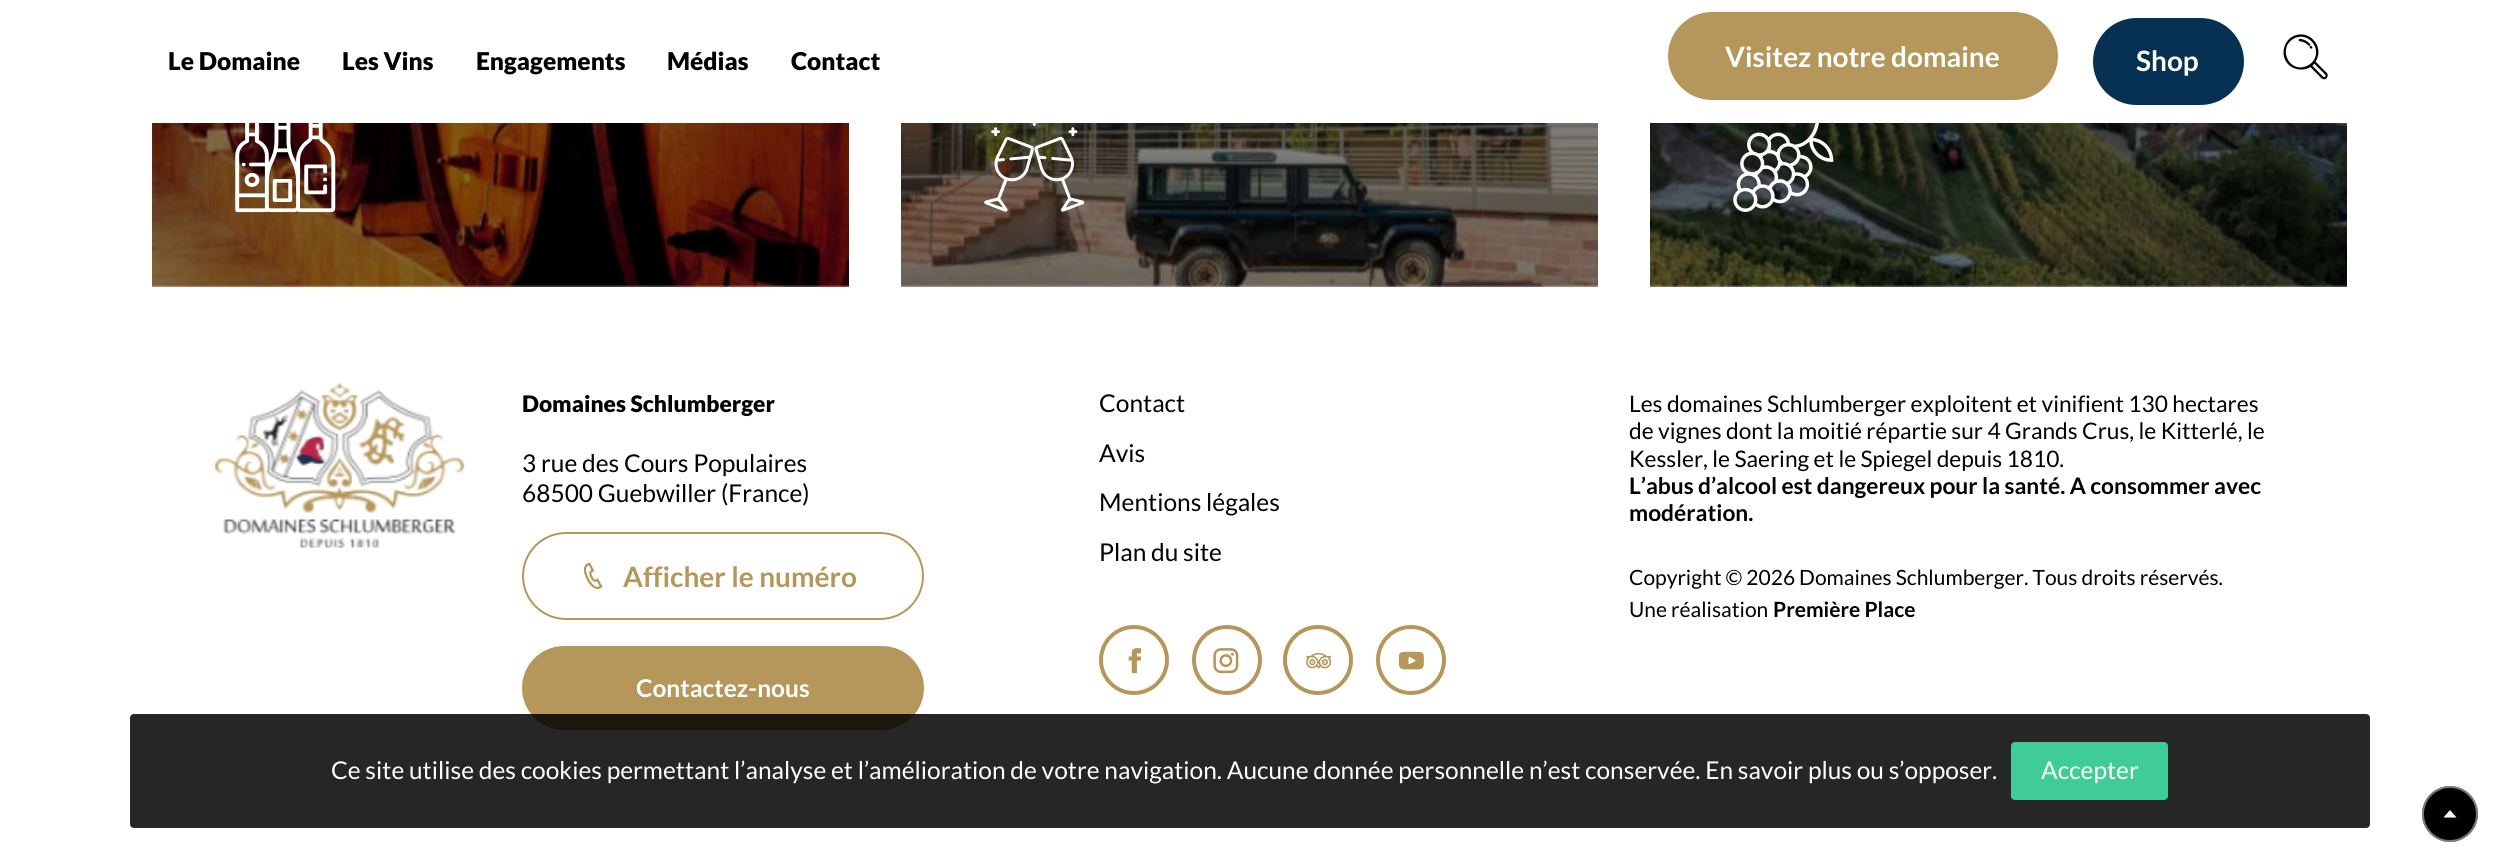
#include <cairo.h>
#include <math.h>
#include <stddef.h>


static void round_rect(cairo_t *cr, double x, double y, double w, double h, double r) {
    cairo_new_sub_path(cr);
    cairo_arc(cr, x + w - r, y + h - r, r, 0, M_PI / 2);
    cairo_arc(cr, x + r, y + h - r, r, M_PI / 2, M_PI);
    cairo_arc(cr, x + r, y + r, r, M_PI, 1.5 * M_PI);
    cairo_arc(cr, x + w - r, y + r, r, 1.5 * M_PI, 2 * M_PI);
    cairo_close_path(cr);
}

static void picture(cairo_t *cr, const char *path, double x, double y, double w, double h) {
    cairo_surface_t *image = cairo_image_surface_create_from_png(path);
    cairo_save(cr);
    cairo_set_source_surface(cr, image, x, y);
    cairo_rectangle(cr, x, y, w, h);
    cairo_fill(cr);
    cairo_restore(cr);
    cairo_surface_destroy(image);
}

int main(void) {
    cairo_surface_t *surface = cairo_image_surface_create(CAIRO_FORMAT_RGB24, 2499, 862);
    cairo_t *cr = cairo_create(surface);
    cairo_font_options_t *options = cairo_font_options_create();
    cairo_font_options_set_hint_metrics(options, CAIRO_HINT_METRICS_OFF);
    cairo_font_options_set_hint_style(options, CAIRO_HINT_STYLE_NONE);
    cairo_set_font_options(cr, options);
    cairo_set_miter_limit(cr, 4);
    cairo_set_source_rgb(cr, 1, 1, 1);
    cairo_paint(cr);
    cairo_select_font_face(cr, "Lato Black", CAIRO_FONT_SLANT_NORMAL, CAIRO_FONT_WEIGHT_NORMAL);
    cairo_set_font_size(cr, 24.5);
    cairo_set_source_rgb(cr, 0, 0, 0);
    cairo_move_to(cr, 168, 70);
    cairo_show_text(cr, "Le Domaine");
    cairo_move_to(cr, 342, 70);
    cairo_show_text(cr, "Les Vins");
    cairo_move_to(cr, 476, 70);
    cairo_show_text(cr, "Engagements");
    cairo_move_to(cr, 667, 70);
    cairo_show_text(cr, "Médias");
    cairo_move_to(cr, 791, 70);
    cairo_show_text(cr, "Contact");
    cairo_set_source_rgb(cr, 0.71, 0.588, 0.357);
    round_rect(cr, 1668, 12, 390, 88, 44);
    cairo_fill(cr);
    cairo_select_font_face(cr, "Lato", CAIRO_FONT_SLANT_NORMAL, CAIRO_FONT_WEIGHT_BOLD);
    cairo_set_font_size(cr, 28);
    cairo_set_source_rgb(cr, 1, 1, 1);
    cairo_move_to(cr, 1725, 67);
    cairo_show_text(cr, "Visitez notre domaine");
    cairo_set_source_rgb(cr, 0.027, 0.192, 0.325);
    round_rect(cr, 2093, 18, 151, 87, 43.5);
    cairo_fill(cr);
    cairo_set_source_rgb(cr, 1, 1, 1);
    cairo_move_to(cr, 2136, 71);
    cairo_show_text(cr, "Shop");
    picture(cr, "img1.png", 2283, 34, 45, 46);
    picture(cr, "img2.png", 152, 123, 697, 164);
    picture(cr, "img3.png", 235, 123, 101, 90);
    picture(cr, "img4.png", 901, 123, 697, 164);
    picture(cr, "img5.png", 984, 123, 101, 89);
    picture(cr, "img6.png", 1650, 123, 697, 164);
    picture(cr, "img7.png", 1733, 123, 101, 89);
    picture(cr, "img8.png", 215, 383, 250, 165);
    cairo_select_font_face(cr, "Lato Black", CAIRO_FONT_SLANT_NORMAL, CAIRO_FONT_WEIGHT_NORMAL);
    cairo_set_font_size(cr, 22.75);
    cairo_set_source_rgb(cr, 0, 0, 0);
    cairo_move_to(cr, 522, 412);
    cairo_show_text(cr, "Domaines Schlumberger");
    cairo_select_font_face(cr, "Lato", CAIRO_FONT_SLANT_NORMAL, CAIRO_FONT_WEIGHT_NORMAL);
    cairo_set_font_size(cr, 24.5);
    cairo_move_to(cr, 522, 472);
    cairo_show_text(cr, "3 rue des Cours Populaires");
    cairo_move_to(cr, 522, 502);
    cairo_show_text(cr, "68500 Guebwiller (France)");
    round_rect(cr, 523, 533, 400, 86, 43);
    cairo_set_source_rgb(cr, 0.71, 0.588, 0.357);
    cairo_stroke(cr);
    picture(cr, "img9.png", 583, 562, 20, 28);
    cairo_select_font_face(cr, "Lato", CAIRO_FONT_SLANT_NORMAL, CAIRO_FONT_WEIGHT_BOLD);
    cairo_set_font_size(cr, 28);
    cairo_move_to(cr, 623, 587);
    cairo_show_text(cr, "Afficher le numéro");
    round_rect(cr, 522, 646, 402, 84, 42);
    cairo_fill(cr);
    cairo_set_font_size(cr, 24.5);
    cairo_set_source_rgb(cr, 1, 1, 1);
    cairo_move_to(cr, 636, 697);
    cairo_show_text(cr, "Contactez-nous");
    cairo_select_font_face(cr, "Lato", CAIRO_FONT_SLANT_NORMAL, CAIRO_FONT_WEIGHT_NORMAL);
    cairo_set_source_rgb(cr, 0, 0, 0);
    cairo_move_to(cr, 1099, 412);
    cairo_show_text(cr, "Contact");
    cairo_move_to(cr, 1099, 462);
    cairo_show_text(cr, "Avis");
    cairo_move_to(cr, 1099, 511);
    cairo_show_text(cr, "Mentions légales");
    cairo_move_to(cr, 1099, 561);
    cairo_show_text(cr, "Plan du site");
    cairo_new_path(cr);
    cairo_arc(cr, 1134, 660, 33, 0, 2 * M_PI);
    cairo_set_source_rgb(cr, 0.71, 0.588, 0.357);
    cairo_set_line_width(cr, 4);
    cairo_stroke(cr);
    picture(cr, "img10.png", 1128, 648, 14, 26);
    cairo_arc(cr, 1227, 660, 33, 0, 2 * M_PI);
    cairo_stroke(cr);
    picture(cr, "img11.png", 1213, 648, 26, 26);
    cairo_arc(cr, 1318, 660, 33, 0, 2 * M_PI);
    cairo_stroke(cr);
    picture(cr, "img12.png", 1306, 652, 26, 17);
    cairo_arc(cr, 1411, 660, 33, 0, 2 * M_PI);
    cairo_stroke(cr);
    picture(cr, "img13.png", 1398, 651, 26, 19);
    cairo_set_font_size(cr, 22.75);
    cairo_set_source_rgb(cr, 0, 0, 0);
    cairo_move_to(cr, 1629, 412);
    cairo_show_text(cr, "Les domaines Schlumberger exploitent et vinifient 130 hectares");
    cairo_move_to(cr, 1629, 439);
    cairo_show_text(cr, "de vignes dont la moitié répartie sur 4 Grands Crus, le Kitterlé, le");
    cairo_move_to(cr, 1629, 467);
    cairo_show_text(cr, "Kessler, le Saering et le Spiegel depuis 1810.");
    cairo_select_font_face(cr, "Lato", CAIRO_FONT_SLANT_NORMAL, CAIRO_FONT_WEIGHT_BOLD);
    cairo_move_to(cr, 1629, 494);
    cairo_show_text(cr, "L’abus d’alcool est dangereux pour la santé. A consommer avec");
    cairo_move_to(cr, 1629, 521);
    cairo_show_text(cr, "modération.");
    cairo_select_font_face(cr, "Lato", CAIRO_FONT_SLANT_NORMAL, CAIRO_FONT_WEIGHT_NORMAL);
    cairo_set_font_size(cr, 21);
    cairo_move_to(cr, 1629, 585);
    cairo_show_text(cr, "Copyright © 2026 Domaines Schlumberger. Tous droits réservés.");
    cairo_move_to(cr, 1629, 617);
    cairo_show_text(cr, "Une réalisation");
    cairo_select_font_face(cr, "Lato", CAIRO_FONT_SLANT_NORMAL, CAIRO_FONT_WEIGHT_BOLD);
    cairo_move_to(cr, 1773, 617);
    cairo_show_text(cr, "Première Place");
    cairo_set_source_rgba(cr, 0, 0, 0, 0.85);
    round_rect(cr, 130, 714, 2240, 114, 4);
    cairo_fill(cr);
    cairo_select_font_face(cr, "Lato", CAIRO_FONT_SLANT_NORMAL, CAIRO_FONT_WEIGHT_NORMAL);
    cairo_set_font_size(cr, 24.5);
    cairo_set_source_rgb(cr, 1, 1, 1);
    cairo_move_to(cr, 331, 779);
    cairo_show_text(cr, "Ce site utilise des cookies permettant l’analyse et l’amélioration de votre navigation. Aucune donnée personnelle n’est conservée. En savoir plus ou s’opposer.");
    cairo_set_source_rgb(cr, 0.247, 0.8, 0.592);
    round_rect(cr, 2011, 742, 157, 58, 4);
    cairo_fill(cr);
    cairo_set_source_rgb(cr, 1, 1, 1);
    cairo_move_to(cr, 2041, 779);
    cairo_show_text(cr, "Accepter");
    cairo_set_source_rgb(cr, 0, 0, 0);
    cairo_new_path(cr);
    cairo_arc(cr, 2450, 814, 28, 0, 2 * M_PI);
    cairo_fill(cr);
    cairo_arc(cr, 2450, 814, 27, 0, 2 * M_PI);
    cairo_set_source_rgba(cr, 1, 1, 1, 0.48);
    cairo_set_line_width(cr, 2);
    cairo_stroke(cr);
    cairo_set_source_rgb(cr, 1, 1, 1);
    cairo_new_path(cr);
    cairo_move_to(cr, 2456.5, 817.5);
    cairo_line_to(cr, 2450, 810);
    cairo_line_to(cr, 2443.5, 817.5);
    cairo_close_path(cr);
    cairo_fill(cr);
    cairo_surface_write_to_png(surface, "page.png");
    cairo_font_options_destroy(options);
    cairo_destroy(cr);
    cairo_surface_destroy(surface);
    return 0;
}
